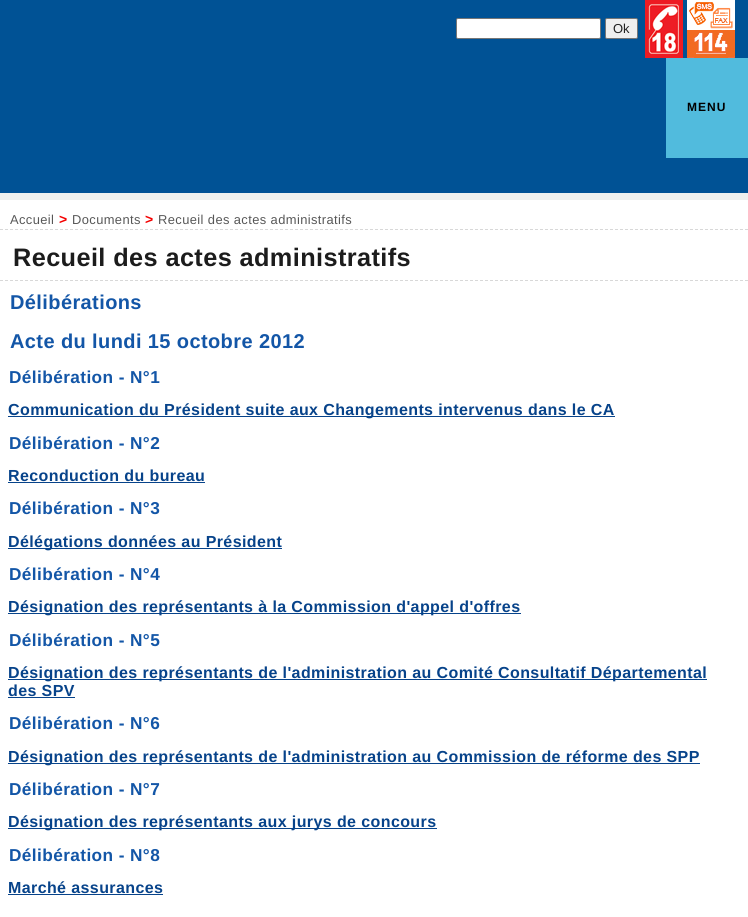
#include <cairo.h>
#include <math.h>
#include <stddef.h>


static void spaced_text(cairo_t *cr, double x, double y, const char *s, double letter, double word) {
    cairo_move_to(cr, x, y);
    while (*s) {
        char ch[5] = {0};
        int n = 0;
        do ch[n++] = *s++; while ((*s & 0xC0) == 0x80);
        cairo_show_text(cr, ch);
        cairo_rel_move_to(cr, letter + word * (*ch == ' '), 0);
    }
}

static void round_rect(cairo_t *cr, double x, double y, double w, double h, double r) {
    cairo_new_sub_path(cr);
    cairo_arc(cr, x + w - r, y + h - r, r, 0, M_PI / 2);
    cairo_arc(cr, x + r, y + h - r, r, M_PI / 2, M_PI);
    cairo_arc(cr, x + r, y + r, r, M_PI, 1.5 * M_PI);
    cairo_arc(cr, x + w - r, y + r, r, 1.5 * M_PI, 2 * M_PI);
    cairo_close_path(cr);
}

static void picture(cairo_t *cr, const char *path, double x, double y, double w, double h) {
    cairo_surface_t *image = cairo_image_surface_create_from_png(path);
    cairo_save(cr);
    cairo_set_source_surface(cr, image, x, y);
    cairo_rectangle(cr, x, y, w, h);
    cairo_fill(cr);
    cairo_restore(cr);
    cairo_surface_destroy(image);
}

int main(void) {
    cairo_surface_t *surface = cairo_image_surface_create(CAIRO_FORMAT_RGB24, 748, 917);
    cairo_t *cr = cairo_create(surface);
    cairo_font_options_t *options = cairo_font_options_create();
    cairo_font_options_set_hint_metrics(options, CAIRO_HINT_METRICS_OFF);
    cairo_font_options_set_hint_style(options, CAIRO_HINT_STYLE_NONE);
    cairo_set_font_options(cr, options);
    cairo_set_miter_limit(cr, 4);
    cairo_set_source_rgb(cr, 0.933, 0.945, 0.937);
    cairo_paint(cr);
    cairo_set_source_rgb(cr, 0, 0.322, 0.584);
    cairo_rectangle(cr, 0, 0, 748, 193);
    cairo_fill(cr);
    cairo_set_source_rgb(cr, 1, 1, 1);
    round_rect(cr, 456.5, 18.5, 144, 20, 1.5);
    cairo_fill_preserve(cr);
    cairo_set_source_rgb(cr, 0.463, 0.463, 0.463);
    cairo_set_line_width(cr, 1);
    cairo_stroke(cr);
    cairo_set_source_rgb(cr, 0.937, 0.937, 0.937);
    round_rect(cr, 605.5, 18.5, 32, 20, 1.5);
    cairo_fill_preserve(cr);
    cairo_set_source_rgb(cr, 0.463, 0.463, 0.463);
    cairo_stroke(cr);
    cairo_select_font_face(cr, "Liberation Sans", CAIRO_FONT_SLANT_NORMAL, CAIRO_FONT_WEIGHT_NORMAL);
    cairo_set_font_size(cr, 13);
    cairo_set_source_rgb(cr, 0.133, 0.133, 0.133);
    cairo_move_to(cr, 613, 33);
    cairo_show_text(cr, "Ok");
    picture(cr, "img1.png", 645, 0, 38, 58);
    picture(cr, "img2.png", 687, 0, 48, 58);
    cairo_set_source_rgb(cr, 0.318, 0.733, 0.867);
    cairo_rectangle(cr, 666, 58, 82, 100);
    cairo_fill(cr);
    cairo_select_font_face(cr, "Liberation Sans", CAIRO_FONT_SLANT_NORMAL, CAIRO_FONT_WEIGHT_BOLD);
    cairo_set_font_size(cr, 12);
    cairo_set_source_rgb(cr, 0, 0, 0);
    spaced_text(cr, 687, 111, "MENU", 1, 0);
    cairo_set_source_rgb(cr, 1, 1, 1);
    cairo_rectangle(cr, 0, 200, 748, 717);
    cairo_fill(cr);
    cairo_new_path(cr);
    cairo_move_to(cr, 0, 229.5);
    cairo_line_to(cr, 748, 229.5);
    cairo_set_source_rgb(cr, 0.847, 0.847, 0.847);
    cairo_set_dash(cr, (double[]){3, 2}, 2, 0);
    cairo_stroke(cr);
    cairo_select_font_face(cr, "Liberation Sans", CAIRO_FONT_SLANT_NORMAL, CAIRO_FONT_WEIGHT_NORMAL);
    cairo_set_font_size(cr, 12.9);
    cairo_set_source_rgb(cr, 0.341, 0.341, 0.341);
    spaced_text(cr, 10, 224, "Accueil", 0.4, 0);
    cairo_select_font_face(cr, "Liberation Sans", CAIRO_FONT_SLANT_NORMAL, CAIRO_FONT_WEIGHT_BOLD);
    cairo_set_font_size(cr, 14);
    cairo_set_source_rgb(cr, 0.957, 0, 0);
    spaced_text(cr, 59, 224, ">", 0.4, 0);
    cairo_select_font_face(cr, "Liberation Sans", CAIRO_FONT_SLANT_NORMAL, CAIRO_FONT_WEIGHT_NORMAL);
    cairo_set_font_size(cr, 12.9);
    cairo_set_source_rgb(cr, 0.341, 0.341, 0.341);
    spaced_text(cr, 72, 224, "Documents", 0.4, 0);
    cairo_select_font_face(cr, "Liberation Sans", CAIRO_FONT_SLANT_NORMAL, CAIRO_FONT_WEIGHT_BOLD);
    cairo_set_font_size(cr, 14);
    cairo_set_source_rgb(cr, 0.957, 0, 0);
    spaced_text(cr, 145, 224, ">", 0.4, 0);
    cairo_select_font_face(cr, "Liberation Sans", CAIRO_FONT_SLANT_NORMAL, CAIRO_FONT_WEIGHT_NORMAL);
    cairo_set_font_size(cr, 12.9);
    cairo_set_source_rgb(cr, 0.341, 0.341, 0.341);
    spaced_text(cr, 158, 224, "Recueil des actes administratifs", 0.4, 0);
    cairo_new_path(cr);
    cairo_move_to(cr, 0, 280.5);
    cairo_line_to(cr, 748, 280.5);
    cairo_set_source_rgb(cr, 0.847, 0.847, 0.847);
    cairo_stroke(cr);
    cairo_select_font_face(cr, "Liberation Sans", CAIRO_FONT_SLANT_NORMAL, CAIRO_FONT_WEIGHT_BOLD);
    cairo_set_font_size(cr, 25.3);
    cairo_set_source_rgb(cr, 0.11, 0.11, 0.11);
    spaced_text(cr, 13, 266, "Recueil des actes administratifs", 0.4, 0);
    cairo_set_font_size(cr, 20);
    cairo_set_source_rgb(cr, 0.075, 0.337, 0.655);
    spaced_text(cr, 10, 309, "Délibérations", 0.4, 0);
    spaced_text(cr, 10, 348, "Acte du lundi 15 octobre 2012", 0.4, 0);
    cairo_set_font_size(cr, 17.25);
    spaced_text(cr, 9, 383, "Délibération - N°1", 0.4, 0);
    cairo_set_source_rgb(cr, 0.031, 0.263, 0.541);
    cairo_rectangle(cr, 8, 416, 607, 1);
    cairo_fill(cr);
    cairo_set_font_size(cr, 16);
    spaced_text(cr, 8, 415, "Communication du Président suite aux Changements intervenus dans le CA", 0.4, 0);
    cairo_set_font_size(cr, 17.25);
    cairo_set_source_rgb(cr, 0.075, 0.337, 0.655);
    spaced_text(cr, 9, 449, "Délibération - N°2", 0.4, 0);
    cairo_set_font_size(cr, 16);
    cairo_set_source_rgb(cr, 0.031, 0.263, 0.541);
    spaced_text(cr, 8, 481, "Reconduction du bureau", 0.4, 0);
    cairo_rectangle(cr, 8, 482, 197, 1);
    cairo_fill(cr);
    cairo_set_font_size(cr, 17.25);
    cairo_set_source_rgb(cr, 0.075, 0.337, 0.655);
    spaced_text(cr, 9, 514, "Délibération - N°3", 0.4, 0);
    cairo_set_source_rgb(cr, 0.031, 0.263, 0.541);
    cairo_rectangle(cr, 8, 548, 274, 1);
    cairo_fill(cr);
    cairo_set_font_size(cr, 16);
    spaced_text(cr, 8, 547, "Délégations données au Président", 0.4, 0);
    cairo_set_font_size(cr, 17.25);
    cairo_set_source_rgb(cr, 0.075, 0.337, 0.655);
    spaced_text(cr, 9, 580, "Délibération - N°4", 0.4, 0);
    cairo_set_source_rgb(cr, 0.031, 0.263, 0.541);
    cairo_rectangle(cr, 8, 613, 513, 1);
    cairo_fill(cr);
    cairo_set_font_size(cr, 16);
    spaced_text(cr, 8, 612, "Désignation des représentants à la Commission d'appel d'offres", 0.4, 0);
    cairo_set_font_size(cr, 17.25);
    cairo_set_source_rgb(cr, 0.075, 0.337, 0.655);
    spaced_text(cr, 9, 646, "Délibération - N°5", 0.4, 0);
    cairo_set_source_rgb(cr, 0.031, 0.263, 0.541);
    cairo_rectangle(cr, 8, 679, 699, 1);
    cairo_fill(cr);
    cairo_set_font_size(cr, 16);
    spaced_text(cr, 8, 678, "Désignation des représentants de l'administration au Comité Consultatif Départemental", 0.4, 0);
    spaced_text(cr, 8, 696, "des SPV", 0.4, 0);
    cairo_rectangle(cr, 8, 697, 67, 1);
    cairo_fill(cr);
    cairo_set_font_size(cr, 17.25);
    cairo_set_source_rgb(cr, 0.075, 0.337, 0.655);
    spaced_text(cr, 9, 729, "Délibération - N°6", 0.4, 0);
    cairo_set_source_rgb(cr, 0.031, 0.263, 0.541);
    cairo_rectangle(cr, 8, 763, 692, 1);
    cairo_fill(cr);
    cairo_set_font_size(cr, 16);
    spaced_text(cr, 8, 762, "Désignation des représentants de l'administration au Commission de réforme des SPP", 0.4, 0);
    cairo_set_font_size(cr, 17.25);
    cairo_set_source_rgb(cr, 0.075, 0.337, 0.655);
    spaced_text(cr, 9, 795, "Délibération - N°7", 0.4, 0);
    cairo_set_source_rgb(cr, 0.031, 0.263, 0.541);
    cairo_rectangle(cr, 8, 828, 429, 1);
    cairo_fill(cr);
    cairo_set_font_size(cr, 16);
    spaced_text(cr, 8, 827, "Désignation des représentants aux jurys de concours", 0.4, 0);
    cairo_set_font_size(cr, 17.25);
    cairo_set_source_rgb(cr, 0.075, 0.337, 0.655);
    spaced_text(cr, 9, 861, "Délibération - N°8", 0.4, 0);
    cairo_set_font_size(cr, 16);
    cairo_set_source_rgb(cr, 0.031, 0.263, 0.541);
    spaced_text(cr, 8, 893, "Marché assurances", 0.4, 0);
    cairo_rectangle(cr, 8, 894, 155, 1);
    cairo_fill(cr);
    cairo_surface_write_to_png(surface, "page.png");
    cairo_font_options_destroy(options);
    cairo_destroy(cr);
    cairo_surface_destroy(surface);
    return 0;
}
